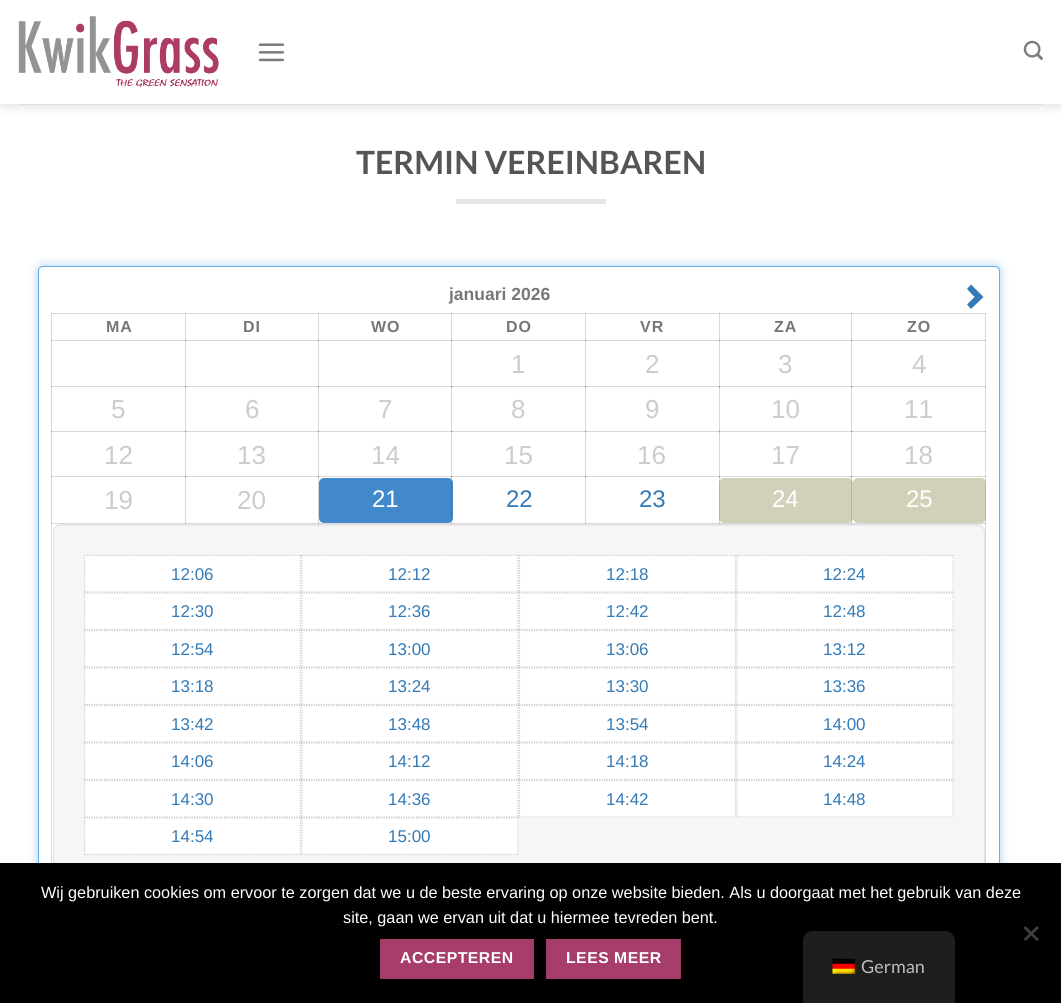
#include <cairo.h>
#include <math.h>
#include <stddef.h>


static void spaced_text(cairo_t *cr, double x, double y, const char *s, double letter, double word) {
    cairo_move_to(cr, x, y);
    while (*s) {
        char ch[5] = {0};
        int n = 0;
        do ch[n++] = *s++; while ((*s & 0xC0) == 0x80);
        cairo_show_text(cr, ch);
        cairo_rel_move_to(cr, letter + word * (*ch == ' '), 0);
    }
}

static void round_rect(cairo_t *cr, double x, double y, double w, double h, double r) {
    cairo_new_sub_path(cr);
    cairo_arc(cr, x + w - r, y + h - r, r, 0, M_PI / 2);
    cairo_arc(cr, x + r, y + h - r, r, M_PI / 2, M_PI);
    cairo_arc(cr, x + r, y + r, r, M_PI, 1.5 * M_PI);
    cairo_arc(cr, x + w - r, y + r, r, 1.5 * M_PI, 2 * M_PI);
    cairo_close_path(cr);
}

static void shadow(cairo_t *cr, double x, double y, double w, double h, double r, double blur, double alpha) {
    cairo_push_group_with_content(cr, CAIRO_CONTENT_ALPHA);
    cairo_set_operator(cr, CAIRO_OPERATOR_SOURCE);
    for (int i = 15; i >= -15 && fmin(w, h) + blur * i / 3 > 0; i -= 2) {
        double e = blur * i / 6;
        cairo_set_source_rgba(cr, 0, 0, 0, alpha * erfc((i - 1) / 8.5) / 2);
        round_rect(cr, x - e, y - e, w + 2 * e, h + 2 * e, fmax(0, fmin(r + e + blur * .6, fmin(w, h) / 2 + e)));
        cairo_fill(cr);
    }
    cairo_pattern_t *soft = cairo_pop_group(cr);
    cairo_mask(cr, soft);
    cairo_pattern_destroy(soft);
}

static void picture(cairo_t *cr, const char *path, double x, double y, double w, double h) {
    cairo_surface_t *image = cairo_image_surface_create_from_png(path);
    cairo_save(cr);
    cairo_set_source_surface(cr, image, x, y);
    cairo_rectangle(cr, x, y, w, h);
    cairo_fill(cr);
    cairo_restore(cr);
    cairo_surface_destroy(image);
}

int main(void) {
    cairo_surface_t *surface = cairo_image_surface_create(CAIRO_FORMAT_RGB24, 1061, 1003);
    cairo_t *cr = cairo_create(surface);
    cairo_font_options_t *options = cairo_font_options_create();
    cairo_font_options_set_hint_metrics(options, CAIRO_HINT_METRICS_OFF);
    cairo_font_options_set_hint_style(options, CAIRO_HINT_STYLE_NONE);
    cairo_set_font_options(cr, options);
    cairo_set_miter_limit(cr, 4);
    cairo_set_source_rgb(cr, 1, 1, 1);
    cairo_paint(cr);
    cairo_save(cr);
    cairo_set_fill_rule(cr, CAIRO_FILL_RULE_EVEN_ODD);
    cairo_new_path(cr);
    cairo_move_to(cr, 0, 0);
    cairo_line_to(cr, 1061, 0);
    cairo_line_to(cr, 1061, 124);
    cairo_line_to(cr, 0, 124);
    cairo_close_path(cr);
    cairo_move_to(cr, 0, 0);
    cairo_line_to(cr, 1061, 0);
    cairo_line_to(cr, 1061, 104);
    cairo_line_to(cr, 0, 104);
    cairo_close_path(cr);
    cairo_clip(cr);
    cairo_set_source_rgb(cr, 0, 0, 0);
    shadow(cr, 1, 1, 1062, 104, 0, 6, 0.15);
    cairo_restore(cr);
    cairo_set_source_rgba(cr, 1, 1, 1, 0.9);
    cairo_rectangle(cr, 1, 103, 1060, 1);
    cairo_fill(cr);
    picture(cr, "img1.png", 18, 16, 201, 72);
    picture(cr, "img2.png", 258, 43, 27, 19);
    picture(cr, "img3.png", 1023, 40, 20, 20);
    cairo_set_source_rgb(cr, 0.875, 0.875, 0.875);
    cairo_rectangle(cr, 19, 104, 1024, 1);
    cairo_fill(cr);
    cairo_select_font_face(cr, "Lato", CAIRO_FONT_SLANT_NORMAL, CAIRO_FONT_WEIGHT_BOLD);
    cairo_set_font_size(cr, 32);
    cairo_set_source_rgb(cr, 0.333, 0.333, 0.333);
    cairo_move_to(cr, 356, 174);
    cairo_show_text(cr, "TERMIN VEREINBAREN");
    cairo_set_source_rgb(cr, 0.902, 0.902, 0.902);
    cairo_rectangle(cr, 456, 199, 150, 5);
    cairo_fill(cr);
    cairo_set_source_rgb(cr, 0.4, 0.686, 0.914);
    shadow(cr, 38, 266, 962, 708, 5, 5, 0.6);
    cairo_set_source_rgb(cr, 1, 1, 1);
    round_rect(cr, 38.5, 266.5, 961, 707, 4.5);
    cairo_fill_preserve(cr);
    cairo_set_source_rgb(cr, 0.4, 0.686, 0.914);
    cairo_set_line_width(cr, 1);
    cairo_stroke(cr);
    cairo_select_font_face(cr, "Liberation Sans", CAIRO_FONT_SLANT_NORMAL, CAIRO_FONT_WEIGHT_BOLD);
    cairo_set_font_size(cr, 17.5);
    cairo_set_source_rgb(cr, 0.467, 0.467, 0.467);
    cairo_move_to(cr, 449, 300);
    cairo_show_text(cr, "januari 2026");
    cairo_set_source_rgb(cr, 0.2, 0.478, 0.718);
    cairo_new_path(cr);
    cairo_move_to(cr, 983.5, 297);
    cairo_line_to(cr, 971, 309);
    cairo_line_to(cr, 967, 304.5);
    cairo_line_to(cr, 974.5, 297);
    cairo_line_to(cr, 967, 289);
    cairo_line_to(cr, 971, 284.5);
    cairo_close_path(cr);
    cairo_fill(cr);
    cairo_set_source_rgb(cr, 0.922, 0.922, 0.922);
    cairo_rectangle(cr, 51, 313, 935, 1);
    cairo_fill(cr);
    cairo_set_source_rgb(cr, 0.82, 0.82, 0.729);
    round_rect(cr, 853, 478, 133, 45, 5);
    cairo_fill(cr);
    cairo_set_source_rgba(cr, 0.2, 0.2, 0.2, 0.1);
    cairo_rectangle(cr, 985, 313, 1, 550);
    cairo_fill(cr);
    cairo_rectangle(cr, 51, 313, 1, 550);
    cairo_fill(cr);
    cairo_rectangle(cr, 851, 313, 135, 1);
    cairo_fill(cr);
    cairo_rectangle(cr, 851, 340, 135, 1);
    cairo_fill(cr);
    cairo_rectangle(cr, 851, 386, 135, 1);
    cairo_fill(cr);
    cairo_rectangle(cr, 851, 431, 135, 1);
    cairo_fill(cr);
    cairo_rectangle(cr, 851, 476, 135, 1);
    cairo_fill(cr);
    cairo_rectangle(cr, 51, 523, 935, 1);
    cairo_fill(cr);
    cairo_rectangle(cr, 985, 523, 1, 340);
    cairo_fill(cr);
    cairo_rectangle(cr, 985, 476, 1, 48);
    cairo_fill(cr);
    cairo_rectangle(cr, 985, 431, 1, 47);
    cairo_fill(cr);
    cairo_rectangle(cr, 985, 386, 1, 47);
    cairo_fill(cr);
    cairo_rectangle(cr, 985, 340, 1, 48);
    cairo_fill(cr);
    cairo_rectangle(cr, 985, 313, 1, 28);
    cairo_fill(cr);
    cairo_set_source_rgb(cr, 0.82, 0.82, 0.729);
    round_rect(cr, 719, 478, 134, 45, 5);
    cairo_fill(cr);
    cairo_set_source_rgba(cr, 0.2, 0.2, 0.2, 0.1);
    cairo_rectangle(cr, 851, 523, 135, 1);
    cairo_fill(cr);
    cairo_rectangle(cr, 851, 476, 1, 48);
    cairo_fill(cr);
    cairo_rectangle(cr, 719, 476, 134, 1);
    cairo_fill(cr);
    cairo_rectangle(cr, 851, 476, 1, 48);
    cairo_fill(cr);
    cairo_rectangle(cr, 851, 476, 135, 1);
    cairo_fill(cr);
    cairo_rectangle(cr, 851, 431, 1, 47);
    cairo_fill(cr);
    cairo_rectangle(cr, 719, 431, 134, 1);
    cairo_fill(cr);
    cairo_rectangle(cr, 851, 431, 1, 47);
    cairo_fill(cr);
    cairo_rectangle(cr, 851, 431, 135, 1);
    cairo_fill(cr);
    cairo_rectangle(cr, 851, 386, 1, 47);
    cairo_fill(cr);
    cairo_rectangle(cr, 719, 386, 134, 1);
    cairo_fill(cr);
    cairo_rectangle(cr, 851, 386, 1, 47);
    cairo_fill(cr);
    cairo_rectangle(cr, 851, 386, 135, 1);
    cairo_fill(cr);
    cairo_rectangle(cr, 851, 340, 1, 48);
    cairo_fill(cr);
    cairo_rectangle(cr, 719, 340, 134, 1);
    cairo_fill(cr);
    cairo_rectangle(cr, 851, 340, 1, 48);
    cairo_fill(cr);
    cairo_rectangle(cr, 851, 340, 135, 1);
    cairo_fill(cr);
    cairo_rectangle(cr, 851, 313, 1, 28);
    cairo_fill(cr);
    cairo_rectangle(cr, 719, 313, 134, 1);
    cairo_fill(cr);
    cairo_rectangle(cr, 851, 313, 1, 28);
    cairo_fill(cr);
    cairo_rectangle(cr, 719, 523, 134, 1);
    cairo_fill(cr);
    cairo_rectangle(cr, 719, 476, 1, 48);
    cairo_fill(cr);
    cairo_rectangle(cr, 585, 476, 135, 1);
    cairo_fill(cr);
    cairo_rectangle(cr, 719, 476, 1, 48);
    cairo_fill(cr);
    cairo_rectangle(cr, 719, 476, 134, 1);
    cairo_fill(cr);
    cairo_rectangle(cr, 719, 431, 1, 47);
    cairo_fill(cr);
    cairo_rectangle(cr, 585, 431, 135, 1);
    cairo_fill(cr);
    cairo_rectangle(cr, 719, 431, 1, 47);
    cairo_fill(cr);
    cairo_rectangle(cr, 719, 431, 134, 1);
    cairo_fill(cr);
    cairo_rectangle(cr, 719, 386, 1, 47);
    cairo_fill(cr);
    cairo_rectangle(cr, 585, 386, 135, 1);
    cairo_fill(cr);
    cairo_rectangle(cr, 719, 386, 1, 47);
    cairo_fill(cr);
    cairo_rectangle(cr, 719, 386, 134, 1);
    cairo_fill(cr);
    cairo_rectangle(cr, 719, 340, 1, 48);
    cairo_fill(cr);
    cairo_rectangle(cr, 585, 340, 135, 1);
    cairo_fill(cr);
    cairo_rectangle(cr, 719, 340, 1, 48);
    cairo_fill(cr);
    cairo_rectangle(cr, 719, 340, 134, 1);
    cairo_fill(cr);
    cairo_rectangle(cr, 719, 313, 1, 28);
    cairo_fill(cr);
    cairo_rectangle(cr, 585, 313, 135, 1);
    cairo_fill(cr);
    cairo_rectangle(cr, 719, 313, 1, 28);
    cairo_fill(cr);
    cairo_rectangle(cr, 585, 523, 135, 1);
    cairo_fill(cr);
    cairo_rectangle(cr, 585, 476, 1, 48);
    cairo_fill(cr);
    cairo_rectangle(cr, 451, 476, 135, 1);
    cairo_fill(cr);
    cairo_rectangle(cr, 585, 476, 1, 48);
    cairo_fill(cr);
    cairo_rectangle(cr, 585, 476, 135, 1);
    cairo_fill(cr);
    cairo_rectangle(cr, 585, 431, 1, 47);
    cairo_fill(cr);
    cairo_rectangle(cr, 451, 431, 135, 1);
    cairo_fill(cr);
    cairo_rectangle(cr, 585, 431, 1, 47);
    cairo_fill(cr);
    cairo_rectangle(cr, 585, 431, 135, 1);
    cairo_fill(cr);
    cairo_rectangle(cr, 585, 386, 1, 47);
    cairo_fill(cr);
    cairo_rectangle(cr, 451, 386, 135, 1);
    cairo_fill(cr);
    cairo_rectangle(cr, 585, 386, 1, 47);
    cairo_fill(cr);
    cairo_rectangle(cr, 585, 386, 135, 1);
    cairo_fill(cr);
    cairo_rectangle(cr, 585, 340, 1, 48);
    cairo_fill(cr);
    cairo_rectangle(cr, 451, 340, 135, 1);
    cairo_fill(cr);
    cairo_rectangle(cr, 585, 340, 1, 48);
    cairo_fill(cr);
    cairo_rectangle(cr, 585, 340, 135, 1);
    cairo_fill(cr);
    cairo_rectangle(cr, 585, 313, 1, 28);
    cairo_fill(cr);
    cairo_rectangle(cr, 451, 313, 135, 1);
    cairo_fill(cr);
    cairo_rectangle(cr, 585, 313, 1, 28);
    cairo_fill(cr);
    cairo_set_source_rgb(cr, 0.259, 0.537, 0.8);
    round_rect(cr, 319, 478, 134, 45, 5);
    cairo_fill(cr);
    cairo_set_source_rgba(cr, 0.2, 0.2, 0.2, 0.1);
    cairo_rectangle(cr, 451, 523, 135, 1);
    cairo_fill(cr);
    cairo_rectangle(cr, 451, 476, 1, 48);
    cairo_fill(cr);
    cairo_rectangle(cr, 318, 476, 135, 1);
    cairo_fill(cr);
    cairo_rectangle(cr, 451, 476, 1, 48);
    cairo_fill(cr);
    cairo_rectangle(cr, 451, 476, 135, 1);
    cairo_fill(cr);
    cairo_rectangle(cr, 451, 431, 1, 47);
    cairo_fill(cr);
    cairo_rectangle(cr, 318, 431, 135, 1);
    cairo_fill(cr);
    cairo_rectangle(cr, 451, 431, 1, 47);
    cairo_fill(cr);
    cairo_rectangle(cr, 451, 431, 135, 1);
    cairo_fill(cr);
    cairo_rectangle(cr, 451, 386, 1, 47);
    cairo_fill(cr);
    cairo_rectangle(cr, 318, 386, 135, 1);
    cairo_fill(cr);
    cairo_rectangle(cr, 451, 386, 1, 47);
    cairo_fill(cr);
    cairo_rectangle(cr, 451, 386, 135, 1);
    cairo_fill(cr);
    cairo_rectangle(cr, 451, 340, 1, 48);
    cairo_fill(cr);
    cairo_rectangle(cr, 318, 340, 135, 1);
    cairo_fill(cr);
    cairo_rectangle(cr, 451, 340, 1, 48);
    cairo_fill(cr);
    cairo_rectangle(cr, 451, 340, 135, 1);
    cairo_fill(cr);
    cairo_rectangle(cr, 451, 313, 1, 28);
    cairo_fill(cr);
    cairo_rectangle(cr, 318, 313, 135, 1);
    cairo_fill(cr);
    cairo_rectangle(cr, 451, 313, 1, 28);
    cairo_fill(cr);
    cairo_rectangle(cr, 318, 523, 135, 1);
    cairo_fill(cr);
    cairo_rectangle(cr, 318, 476, 1, 48);
    cairo_fill(cr);
    cairo_rectangle(cr, 185, 476, 134, 1);
    cairo_fill(cr);
    cairo_rectangle(cr, 318, 476, 1, 48);
    cairo_fill(cr);
    cairo_rectangle(cr, 318, 476, 135, 1);
    cairo_fill(cr);
    cairo_rectangle(cr, 318, 431, 1, 47);
    cairo_fill(cr);
    cairo_rectangle(cr, 185, 431, 134, 1);
    cairo_fill(cr);
    cairo_rectangle(cr, 318, 431, 1, 47);
    cairo_fill(cr);
    cairo_rectangle(cr, 318, 431, 135, 1);
    cairo_fill(cr);
    cairo_rectangle(cr, 318, 386, 1, 47);
    cairo_fill(cr);
    cairo_rectangle(cr, 185, 386, 134, 1);
    cairo_fill(cr);
    cairo_rectangle(cr, 318, 386, 1, 47);
    cairo_fill(cr);
    cairo_rectangle(cr, 318, 386, 135, 1);
    cairo_fill(cr);
    cairo_rectangle(cr, 318, 340, 1, 48);
    cairo_fill(cr);
    cairo_rectangle(cr, 185, 340, 134, 1);
    cairo_fill(cr);
    cairo_rectangle(cr, 318, 340, 1, 48);
    cairo_fill(cr);
    cairo_rectangle(cr, 318, 340, 135, 1);
    cairo_fill(cr);
    cairo_rectangle(cr, 318, 313, 1, 28);
    cairo_fill(cr);
    cairo_rectangle(cr, 185, 313, 134, 1);
    cairo_fill(cr);
    cairo_rectangle(cr, 318, 313, 1, 28);
    cairo_fill(cr);
    cairo_rectangle(cr, 185, 523, 134, 1);
    cairo_fill(cr);
    cairo_rectangle(cr, 185, 476, 1, 48);
    cairo_fill(cr);
    cairo_rectangle(cr, 51, 476, 135, 1);
    cairo_fill(cr);
    cairo_rectangle(cr, 185, 476, 1, 48);
    cairo_fill(cr);
    cairo_rectangle(cr, 185, 476, 134, 1);
    cairo_fill(cr);
    cairo_rectangle(cr, 185, 431, 1, 47);
    cairo_fill(cr);
    cairo_rectangle(cr, 51, 431, 135, 1);
    cairo_fill(cr);
    cairo_rectangle(cr, 185, 431, 1, 47);
    cairo_fill(cr);
    cairo_rectangle(cr, 185, 431, 134, 1);
    cairo_fill(cr);
    cairo_rectangle(cr, 185, 386, 1, 47);
    cairo_fill(cr);
    cairo_rectangle(cr, 51, 386, 135, 1);
    cairo_fill(cr);
    cairo_rectangle(cr, 185, 386, 1, 47);
    cairo_fill(cr);
    cairo_rectangle(cr, 185, 386, 134, 1);
    cairo_fill(cr);
    cairo_rectangle(cr, 185, 340, 1, 48);
    cairo_fill(cr);
    cairo_rectangle(cr, 51, 340, 135, 1);
    cairo_fill(cr);
    cairo_rectangle(cr, 185, 340, 1, 48);
    cairo_fill(cr);
    cairo_rectangle(cr, 185, 340, 134, 1);
    cairo_fill(cr);
    cairo_rectangle(cr, 185, 313, 1, 28);
    cairo_fill(cr);
    cairo_rectangle(cr, 51, 313, 135, 1);
    cairo_fill(cr);
    cairo_rectangle(cr, 185, 313, 1, 28);
    cairo_fill(cr);
    cairo_rectangle(cr, 51, 523, 1, 340);
    cairo_fill(cr);
    cairo_rectangle(cr, 51, 523, 135, 1);
    cairo_fill(cr);
    cairo_rectangle(cr, 51, 476, 1, 48);
    cairo_fill(cr);
    cairo_rectangle(cr, 51, 476, 135, 1);
    cairo_fill(cr);
    cairo_rectangle(cr, 51, 431, 1, 47);
    cairo_fill(cr);
    cairo_rectangle(cr, 51, 431, 135, 1);
    cairo_fill(cr);
    cairo_rectangle(cr, 51, 386, 1, 47);
    cairo_fill(cr);
    cairo_rectangle(cr, 51, 386, 135, 1);
    cairo_fill(cr);
    cairo_rectangle(cr, 51, 340, 1, 48);
    cairo_fill(cr);
    cairo_rectangle(cr, 51, 340, 135, 1);
    cairo_fill(cr);
    cairo_rectangle(cr, 51, 313, 1, 28);
    cairo_fill(cr);
    cairo_set_font_size(cr, 16);
    cairo_set_source_rgb(cr, 0.467, 0.467, 0.467);
    spaced_text(cr, 106, 332, "MA", 1, 0);
    spaced_text(cr, 243, 332, "DI", 1, 0);
    spaced_text(cr, 371, 332, "WO", 1, 0);
    spaced_text(cr, 506, 332, "DO", 1, 0);
    spaced_text(cr, 640, 332, "VR", 1, 0);
    spaced_text(cr, 774, 332, "ZA", 1, 0);
    spaced_text(cr, 907, 332, "ZO", 1, 0);
    cairo_select_font_face(cr, "Liberation Sans", CAIRO_FONT_SLANT_NORMAL, CAIRO_FONT_WEIGHT_NORMAL);
    cairo_set_font_size(cr, 26);
    cairo_set_source_rgb(cr, 0.8, 0.8, 0.8);
    cairo_move_to(cr, 511, 373);
    cairo_show_text(cr, "1");
    cairo_move_to(cr, 645, 373);
    cairo_show_text(cr, "2");
    cairo_move_to(cr, 778, 373);
    cairo_show_text(cr, "3");
    cairo_move_to(cr, 912, 373);
    cairo_show_text(cr, "4");
    cairo_move_to(cr, 111, 418);
    cairo_show_text(cr, "5");
    cairo_move_to(cr, 245, 418);
    cairo_show_text(cr, "6");
    cairo_move_to(cr, 378, 418);
    cairo_show_text(cr, "7");
    cairo_move_to(cr, 511, 418);
    cairo_show_text(cr, "8");
    cairo_move_to(cr, 645, 418);
    cairo_show_text(cr, "9");
    cairo_move_to(cr, 771, 418);
    cairo_show_text(cr, "10");
    cairo_move_to(cr, 904, 418);
    cairo_show_text(cr, "11");
    cairo_move_to(cr, 104, 464);
    cairo_show_text(cr, "12");
    cairo_move_to(cr, 237, 464);
    cairo_show_text(cr, "13");
    cairo_move_to(cr, 371, 464);
    cairo_show_text(cr, "14");
    cairo_move_to(cr, 504, 464);
    cairo_show_text(cr, "15");
    cairo_move_to(cr, 637, 464);
    cairo_show_text(cr, "16");
    cairo_move_to(cr, 771, 464);
    cairo_show_text(cr, "17");
    cairo_move_to(cr, 904, 464);
    cairo_show_text(cr, "18");
    cairo_move_to(cr, 104, 509);
    cairo_show_text(cr, "19");
    cairo_move_to(cr, 237, 509);
    cairo_show_text(cr, "20");
    cairo_set_font_size(cr, 24);
    cairo_set_source_rgb(cr, 1, 1, 1);
    cairo_move_to(cr, 372, 507);
    cairo_show_text(cr, "21");
    cairo_set_source_rgb(cr, 0.2, 0.478, 0.718);
    cairo_move_to(cr, 506, 507);
    cairo_show_text(cr, "22");
    cairo_move_to(cr, 639, 507);
    cairo_show_text(cr, "23");
    cairo_set_source_rgb(cr, 1, 1, 1);
    cairo_move_to(cr, 772, 507);
    cairo_show_text(cr, "24");
    cairo_move_to(cr, 906, 507);
    cairo_show_text(cr, "25");
    cairo_set_source_rgb(cr, 0.961, 0.961, 0.961);
    round_rect(cr, 53, 524, 932, 362, 8);
    cairo_fill(cr);
    cairo_set_source_rgb(cr, 0.914, 0.914, 0.914);
    cairo_new_path(cr);
    cairo_move_to(cr, 60, 526);
    cairo_line_to(cr, 978, 526);
    cairo_curve_to(cr, 981, 526, 984, 529, 984, 532);
    cairo_line_to(cr, 984, 531);
    cairo_curve_to(cr, 984, 528, 981, 525, 978, 525);
    cairo_line_to(cr, 60, 525);
    cairo_curve_to(cr, 57, 525, 54, 528, 54, 531);
    cairo_line_to(cr, 54, 532);
    cairo_curve_to(cr, 54, 529, 57, 526, 60, 526);
    cairo_close_path(cr);
    cairo_fill(cr);
    round_rect(cr, 53.5, 524.5, 931, 361, 7.5);
    cairo_set_source_rgb(cr, 0.89, 0.89, 0.89);
    cairo_stroke(cr);
    cairo_set_source_rgb(cr, 1, 1, 1);
    cairo_rectangle(cr, 84, 555, 217, 75);
    cairo_fill(cr);
    cairo_new_path(cr);
    cairo_move_to(cr, 84, 555.5);
    cairo_line_to(cr, 301, 555.5);
    cairo_set_source_rgb(cr, 0.8, 0.8, 0.8);
    cairo_set_line_width(cr, 1.2);
    cairo_set_dash(cr, (double[]){1.25, 1.25}, 2, 0);
    cairo_stroke(cr);
    cairo_new_path(cr);
    cairo_move_to(cr, 300.5, 555);
    cairo_line_to(cr, 300.5, 592.5);
    cairo_stroke(cr);
    cairo_new_path(cr);
    cairo_move_to(cr, 84, 592);
    cairo_line_to(cr, 301, 592);
    cairo_stroke(cr);
    cairo_new_path(cr);
    cairo_move_to(cr, 84.5, 555);
    cairo_line_to(cr, 84.5, 592.5);
    cairo_stroke(cr);
    cairo_set_font_size(cr, 17);
    cairo_set_source_rgb(cr, 0.2, 0.478, 0.718);
    cairo_move_to(cr, 171, 580);
    cairo_show_text(cr, "12:06");
    cairo_set_source_rgb(cr, 1, 1, 1);
    cairo_rectangle(cr, 301, 555, 435, 38);
    cairo_fill(cr);
    cairo_new_path(cr);
    cairo_move_to(cr, 301, 555.5);
    cairo_line_to(cr, 519, 555.5);
    cairo_set_source_rgb(cr, 0.8, 0.8, 0.8);
    cairo_stroke(cr);
    cairo_new_path(cr);
    cairo_move_to(cr, 518, 555);
    cairo_line_to(cr, 518, 592.5);
    cairo_stroke(cr);
    cairo_new_path(cr);
    cairo_move_to(cr, 301, 592);
    cairo_line_to(cr, 519, 592);
    cairo_stroke(cr);
    cairo_new_path(cr);
    cairo_move_to(cr, 302, 555);
    cairo_line_to(cr, 302, 592.5);
    cairo_stroke(cr);
    cairo_set_source_rgb(cr, 0.2, 0.478, 0.718);
    cairo_move_to(cr, 388, 580);
    cairo_show_text(cr, "12:12");
    cairo_new_path(cr);
    cairo_move_to(cr, 519, 555.5);
    cairo_line_to(cr, 736, 555.5);
    cairo_set_source_rgb(cr, 0.8, 0.8, 0.8);
    cairo_stroke(cr);
    cairo_new_path(cr);
    cairo_move_to(cr, 735.5, 555);
    cairo_line_to(cr, 735.5, 592.5);
    cairo_stroke(cr);
    cairo_new_path(cr);
    cairo_move_to(cr, 519, 592);
    cairo_line_to(cr, 736, 592);
    cairo_stroke(cr);
    cairo_new_path(cr);
    cairo_move_to(cr, 519.5, 555);
    cairo_line_to(cr, 519.5, 592.5);
    cairo_stroke(cr);
    cairo_set_source_rgb(cr, 0.2, 0.478, 0.718);
    cairo_move_to(cr, 606, 580);
    cairo_show_text(cr, "12:18");
    cairo_set_source_rgb(cr, 1, 1, 1);
    cairo_rectangle(cr, 736, 555, 218, 38);
    cairo_fill(cr);
    cairo_new_path(cr);
    cairo_move_to(cr, 736, 555.5);
    cairo_line_to(cr, 954, 555.5);
    cairo_set_source_rgb(cr, 0.8, 0.8, 0.8);
    cairo_stroke(cr);
    cairo_new_path(cr);
    cairo_move_to(cr, 953, 555);
    cairo_line_to(cr, 953, 592.5);
    cairo_stroke(cr);
    cairo_new_path(cr);
    cairo_move_to(cr, 736, 592);
    cairo_line_to(cr, 954, 592);
    cairo_stroke(cr);
    cairo_new_path(cr);
    cairo_move_to(cr, 737, 555);
    cairo_line_to(cr, 737, 592.5);
    cairo_stroke(cr);
    cairo_set_source_rgb(cr, 0.2, 0.478, 0.718);
    cairo_move_to(cr, 823, 580);
    cairo_show_text(cr, "12:24");
    cairo_new_path(cr);
    cairo_move_to(cr, 84, 593);
    cairo_line_to(cr, 301, 593);
    cairo_set_source_rgb(cr, 0.8, 0.8, 0.8);
    cairo_stroke(cr);
    cairo_new_path(cr);
    cairo_move_to(cr, 300.5, 592.5);
    cairo_line_to(cr, 300.5, 630);
    cairo_stroke(cr);
    cairo_new_path(cr);
    cairo_move_to(cr, 84, 629.5);
    cairo_line_to(cr, 301, 629.5);
    cairo_stroke(cr);
    cairo_new_path(cr);
    cairo_move_to(cr, 84.5, 592.5);
    cairo_line_to(cr, 84.5, 630);
    cairo_stroke(cr);
    cairo_set_source_rgb(cr, 0.2, 0.478, 0.718);
    cairo_move_to(cr, 171, 617);
    cairo_show_text(cr, "12:30");
    cairo_set_source_rgb(cr, 1, 1, 1);
    cairo_rectangle(cr, 301, 593, 435, 37);
    cairo_fill(cr);
    cairo_new_path(cr);
    cairo_move_to(cr, 301, 593);
    cairo_line_to(cr, 519, 593);
    cairo_set_source_rgb(cr, 0.8, 0.8, 0.8);
    cairo_stroke(cr);
    cairo_new_path(cr);
    cairo_move_to(cr, 518, 592.5);
    cairo_line_to(cr, 518, 630);
    cairo_stroke(cr);
    cairo_new_path(cr);
    cairo_move_to(cr, 301, 629.5);
    cairo_line_to(cr, 519, 629.5);
    cairo_stroke(cr);
    cairo_new_path(cr);
    cairo_move_to(cr, 302, 592.5);
    cairo_line_to(cr, 302, 630);
    cairo_stroke(cr);
    cairo_set_source_rgb(cr, 0.2, 0.478, 0.718);
    cairo_move_to(cr, 388, 617);
    cairo_show_text(cr, "12:36");
    cairo_new_path(cr);
    cairo_move_to(cr, 519, 593);
    cairo_line_to(cr, 736, 593);
    cairo_set_source_rgb(cr, 0.8, 0.8, 0.8);
    cairo_stroke(cr);
    cairo_new_path(cr);
    cairo_move_to(cr, 735.5, 592.5);
    cairo_line_to(cr, 735.5, 630);
    cairo_stroke(cr);
    cairo_new_path(cr);
    cairo_move_to(cr, 519, 629.5);
    cairo_line_to(cr, 736, 629.5);
    cairo_stroke(cr);
    cairo_new_path(cr);
    cairo_move_to(cr, 519.5, 592.5);
    cairo_line_to(cr, 519.5, 630);
    cairo_stroke(cr);
    cairo_set_source_rgb(cr, 0.2, 0.478, 0.718);
    cairo_move_to(cr, 606, 617);
    cairo_show_text(cr, "12:42");
    cairo_set_source_rgb(cr, 1, 1, 1);
    cairo_rectangle(cr, 736, 593, 218, 37);
    cairo_fill(cr);
    cairo_new_path(cr);
    cairo_move_to(cr, 736, 593);
    cairo_line_to(cr, 954, 593);
    cairo_set_source_rgb(cr, 0.8, 0.8, 0.8);
    cairo_stroke(cr);
    cairo_new_path(cr);
    cairo_move_to(cr, 953, 592.5);
    cairo_line_to(cr, 953, 630);
    cairo_stroke(cr);
    cairo_new_path(cr);
    cairo_move_to(cr, 736, 629.5);
    cairo_line_to(cr, 954, 629.5);
    cairo_stroke(cr);
    cairo_new_path(cr);
    cairo_move_to(cr, 737, 592.5);
    cairo_line_to(cr, 737, 630);
    cairo_stroke(cr);
    cairo_set_source_rgb(cr, 0.2, 0.478, 0.718);
    cairo_move_to(cr, 823, 617);
    cairo_show_text(cr, "12:48");
    cairo_set_source_rgb(cr, 1, 1, 1);
    cairo_rectangle(cr, 84, 630, 217, 75);
    cairo_fill(cr);
    cairo_new_path(cr);
    cairo_move_to(cr, 84, 630.5);
    cairo_line_to(cr, 301, 630.5);
    cairo_set_source_rgb(cr, 0.8, 0.8, 0.8);
    cairo_stroke(cr);
    cairo_new_path(cr);
    cairo_move_to(cr, 300.5, 630);
    cairo_line_to(cr, 300.5, 667.5);
    cairo_stroke(cr);
    cairo_new_path(cr);
    cairo_move_to(cr, 84, 667);
    cairo_line_to(cr, 301, 667);
    cairo_stroke(cr);
    cairo_new_path(cr);
    cairo_move_to(cr, 84.5, 630);
    cairo_line_to(cr, 84.5, 667.5);
    cairo_stroke(cr);
    cairo_set_source_rgb(cr, 0.2, 0.478, 0.718);
    cairo_move_to(cr, 171, 655);
    cairo_show_text(cr, "12:54");
    cairo_set_source_rgb(cr, 1, 1, 1);
    cairo_rectangle(cr, 301, 630, 435, 38);
    cairo_fill(cr);
    cairo_new_path(cr);
    cairo_move_to(cr, 301, 630.5);
    cairo_line_to(cr, 519, 630.5);
    cairo_set_source_rgb(cr, 0.8, 0.8, 0.8);
    cairo_stroke(cr);
    cairo_new_path(cr);
    cairo_move_to(cr, 518, 630);
    cairo_line_to(cr, 518, 667.5);
    cairo_stroke(cr);
    cairo_new_path(cr);
    cairo_move_to(cr, 301, 667);
    cairo_line_to(cr, 519, 667);
    cairo_stroke(cr);
    cairo_new_path(cr);
    cairo_move_to(cr, 302, 630);
    cairo_line_to(cr, 302, 667.5);
    cairo_stroke(cr);
    cairo_set_source_rgb(cr, 0.2, 0.478, 0.718);
    cairo_move_to(cr, 388, 655);
    cairo_show_text(cr, "13:00");
    cairo_new_path(cr);
    cairo_move_to(cr, 519, 630.5);
    cairo_line_to(cr, 736, 630.5);
    cairo_set_source_rgb(cr, 0.8, 0.8, 0.8);
    cairo_stroke(cr);
    cairo_new_path(cr);
    cairo_move_to(cr, 735.5, 630);
    cairo_line_to(cr, 735.5, 667.5);
    cairo_stroke(cr);
    cairo_new_path(cr);
    cairo_move_to(cr, 519, 667);
    cairo_line_to(cr, 736, 667);
    cairo_stroke(cr);
    cairo_new_path(cr);
    cairo_move_to(cr, 519.5, 630);
    cairo_line_to(cr, 519.5, 667.5);
    cairo_stroke(cr);
    cairo_set_source_rgb(cr, 0.2, 0.478, 0.718);
    cairo_move_to(cr, 606, 655);
    cairo_show_text(cr, "13:06");
    cairo_set_source_rgb(cr, 1, 1, 1);
    cairo_rectangle(cr, 736, 630, 218, 38);
    cairo_fill(cr);
    cairo_new_path(cr);
    cairo_move_to(cr, 736, 630.5);
    cairo_line_to(cr, 954, 630.5);
    cairo_set_source_rgb(cr, 0.8, 0.8, 0.8);
    cairo_stroke(cr);
    cairo_new_path(cr);
    cairo_move_to(cr, 953, 630);
    cairo_line_to(cr, 953, 667.5);
    cairo_stroke(cr);
    cairo_new_path(cr);
    cairo_move_to(cr, 736, 667);
    cairo_line_to(cr, 954, 667);
    cairo_stroke(cr);
    cairo_new_path(cr);
    cairo_move_to(cr, 737, 630);
    cairo_line_to(cr, 737, 667.5);
    cairo_stroke(cr);
    cairo_set_source_rgb(cr, 0.2, 0.478, 0.718);
    cairo_move_to(cr, 823, 655);
    cairo_show_text(cr, "13:12");
    cairo_new_path(cr);
    cairo_move_to(cr, 84, 668);
    cairo_line_to(cr, 301, 668);
    cairo_set_source_rgb(cr, 0.8, 0.8, 0.8);
    cairo_stroke(cr);
    cairo_new_path(cr);
    cairo_move_to(cr, 300.5, 667.5);
    cairo_line_to(cr, 300.5, 705);
    cairo_stroke(cr);
    cairo_new_path(cr);
    cairo_move_to(cr, 84, 704.5);
    cairo_line_to(cr, 301, 704.5);
    cairo_stroke(cr);
    cairo_new_path(cr);
    cairo_move_to(cr, 84.5, 667.5);
    cairo_line_to(cr, 84.5, 705);
    cairo_stroke(cr);
    cairo_set_source_rgb(cr, 0.2, 0.478, 0.718);
    cairo_move_to(cr, 171, 692);
    cairo_show_text(cr, "13:18");
    cairo_set_source_rgb(cr, 1, 1, 1);
    cairo_rectangle(cr, 301, 668, 435, 37);
    cairo_fill(cr);
    cairo_new_path(cr);
    cairo_move_to(cr, 301, 668);
    cairo_line_to(cr, 519, 668);
    cairo_set_source_rgb(cr, 0.8, 0.8, 0.8);
    cairo_stroke(cr);
    cairo_new_path(cr);
    cairo_move_to(cr, 518, 667.5);
    cairo_line_to(cr, 518, 705);
    cairo_stroke(cr);
    cairo_new_path(cr);
    cairo_move_to(cr, 301, 704.5);
    cairo_line_to(cr, 519, 704.5);
    cairo_stroke(cr);
    cairo_new_path(cr);
    cairo_move_to(cr, 302, 667.5);
    cairo_line_to(cr, 302, 705);
    cairo_stroke(cr);
    cairo_set_source_rgb(cr, 0.2, 0.478, 0.718);
    cairo_move_to(cr, 388, 692);
    cairo_show_text(cr, "13:24");
    cairo_new_path(cr);
    cairo_move_to(cr, 519, 668);
    cairo_line_to(cr, 736, 668);
    cairo_set_source_rgb(cr, 0.8, 0.8, 0.8);
    cairo_stroke(cr);
    cairo_new_path(cr);
    cairo_move_to(cr, 735.5, 667.5);
    cairo_line_to(cr, 735.5, 705);
    cairo_stroke(cr);
    cairo_new_path(cr);
    cairo_move_to(cr, 519, 704.5);
    cairo_line_to(cr, 736, 704.5);
    cairo_stroke(cr);
    cairo_new_path(cr);
    cairo_move_to(cr, 519.5, 667.5);
    cairo_line_to(cr, 519.5, 705);
    cairo_stroke(cr);
    cairo_set_source_rgb(cr, 0.2, 0.478, 0.718);
    cairo_move_to(cr, 606, 692);
    cairo_show_text(cr, "13:30");
    cairo_set_source_rgb(cr, 1, 1, 1);
    cairo_rectangle(cr, 736, 668, 218, 37);
    cairo_fill(cr);
    cairo_new_path(cr);
    cairo_move_to(cr, 736, 668);
    cairo_line_to(cr, 954, 668);
    cairo_set_source_rgb(cr, 0.8, 0.8, 0.8);
    cairo_stroke(cr);
    cairo_new_path(cr);
    cairo_move_to(cr, 953, 667.5);
    cairo_line_to(cr, 953, 705);
    cairo_stroke(cr);
    cairo_new_path(cr);
    cairo_move_to(cr, 736, 704.5);
    cairo_line_to(cr, 954, 704.5);
    cairo_stroke(cr);
    cairo_new_path(cr);
    cairo_move_to(cr, 737, 667.5);
    cairo_line_to(cr, 737, 705);
    cairo_stroke(cr);
    cairo_set_source_rgb(cr, 0.2, 0.478, 0.718);
    cairo_move_to(cr, 823, 692);
    cairo_show_text(cr, "13:36");
    cairo_set_source_rgb(cr, 1, 1, 1);
    cairo_rectangle(cr, 84, 705, 217, 75);
    cairo_fill(cr);
    cairo_new_path(cr);
    cairo_move_to(cr, 84, 705.5);
    cairo_line_to(cr, 301, 705.5);
    cairo_set_source_rgb(cr, 0.8, 0.8, 0.8);
    cairo_stroke(cr);
    cairo_new_path(cr);
    cairo_move_to(cr, 300.5, 705);
    cairo_line_to(cr, 300.5, 742.5);
    cairo_stroke(cr);
    cairo_new_path(cr);
    cairo_move_to(cr, 84, 742);
    cairo_line_to(cr, 301, 742);
    cairo_stroke(cr);
    cairo_new_path(cr);
    cairo_move_to(cr, 84.5, 705);
    cairo_line_to(cr, 84.5, 742.5);
    cairo_stroke(cr);
    cairo_set_source_rgb(cr, 0.2, 0.478, 0.718);
    cairo_move_to(cr, 171, 730);
    cairo_show_text(cr, "13:42");
    cairo_set_source_rgb(cr, 1, 1, 1);
    cairo_rectangle(cr, 301, 705, 435, 38);
    cairo_fill(cr);
    cairo_new_path(cr);
    cairo_move_to(cr, 301, 705.5);
    cairo_line_to(cr, 519, 705.5);
    cairo_set_source_rgb(cr, 0.8, 0.8, 0.8);
    cairo_stroke(cr);
    cairo_new_path(cr);
    cairo_move_to(cr, 518, 705);
    cairo_line_to(cr, 518, 742.5);
    cairo_stroke(cr);
    cairo_new_path(cr);
    cairo_move_to(cr, 301, 742);
    cairo_line_to(cr, 519, 742);
    cairo_stroke(cr);
    cairo_new_path(cr);
    cairo_move_to(cr, 302, 705);
    cairo_line_to(cr, 302, 742.5);
    cairo_stroke(cr);
    cairo_set_source_rgb(cr, 0.2, 0.478, 0.718);
    cairo_move_to(cr, 388, 730);
    cairo_show_text(cr, "13:48");
    cairo_new_path(cr);
    cairo_move_to(cr, 519, 705.5);
    cairo_line_to(cr, 736, 705.5);
    cairo_set_source_rgb(cr, 0.8, 0.8, 0.8);
    cairo_stroke(cr);
    cairo_new_path(cr);
    cairo_move_to(cr, 735.5, 705);
    cairo_line_to(cr, 735.5, 742.5);
    cairo_stroke(cr);
    cairo_new_path(cr);
    cairo_move_to(cr, 519, 742);
    cairo_line_to(cr, 736, 742);
    cairo_stroke(cr);
    cairo_new_path(cr);
    cairo_move_to(cr, 519.5, 705);
    cairo_line_to(cr, 519.5, 742.5);
    cairo_stroke(cr);
    cairo_set_source_rgb(cr, 0.2, 0.478, 0.718);
    cairo_move_to(cr, 606, 730);
    cairo_show_text(cr, "13:54");
    cairo_set_source_rgb(cr, 1, 1, 1);
    cairo_rectangle(cr, 736, 705, 218, 38);
    cairo_fill(cr);
    cairo_new_path(cr);
    cairo_move_to(cr, 736, 705.5);
    cairo_line_to(cr, 954, 705.5);
    cairo_set_source_rgb(cr, 0.8, 0.8, 0.8);
    cairo_stroke(cr);
    cairo_new_path(cr);
    cairo_move_to(cr, 953, 705);
    cairo_line_to(cr, 953, 742.5);
    cairo_stroke(cr);
    cairo_new_path(cr);
    cairo_move_to(cr, 736, 742);
    cairo_line_to(cr, 954, 742);
    cairo_stroke(cr);
    cairo_new_path(cr);
    cairo_move_to(cr, 737, 705);
    cairo_line_to(cr, 737, 742.5);
    cairo_stroke(cr);
    cairo_set_source_rgb(cr, 0.2, 0.478, 0.718);
    cairo_move_to(cr, 823, 730);
    cairo_show_text(cr, "14:00");
    cairo_new_path(cr);
    cairo_move_to(cr, 84, 743);
    cairo_line_to(cr, 301, 743);
    cairo_set_source_rgb(cr, 0.8, 0.8, 0.8);
    cairo_stroke(cr);
    cairo_new_path(cr);
    cairo_move_to(cr, 300.5, 742.5);
    cairo_line_to(cr, 300.5, 780);
    cairo_stroke(cr);
    cairo_new_path(cr);
    cairo_move_to(cr, 84, 779.5);
    cairo_line_to(cr, 301, 779.5);
    cairo_stroke(cr);
    cairo_new_path(cr);
    cairo_move_to(cr, 84.5, 742.5);
    cairo_line_to(cr, 84.5, 780);
    cairo_stroke(cr);
    cairo_set_source_rgb(cr, 0.2, 0.478, 0.718);
    cairo_move_to(cr, 171, 767);
    cairo_show_text(cr, "14:06");
    cairo_set_source_rgb(cr, 1, 1, 1);
    cairo_rectangle(cr, 301, 743, 435, 37);
    cairo_fill(cr);
    cairo_new_path(cr);
    cairo_move_to(cr, 301, 743);
    cairo_line_to(cr, 519, 743);
    cairo_set_source_rgb(cr, 0.8, 0.8, 0.8);
    cairo_stroke(cr);
    cairo_new_path(cr);
    cairo_move_to(cr, 518, 742.5);
    cairo_line_to(cr, 518, 780);
    cairo_stroke(cr);
    cairo_new_path(cr);
    cairo_move_to(cr, 301, 779.5);
    cairo_line_to(cr, 519, 779.5);
    cairo_stroke(cr);
    cairo_new_path(cr);
    cairo_move_to(cr, 302, 742.5);
    cairo_line_to(cr, 302, 780);
    cairo_stroke(cr);
    cairo_set_source_rgb(cr, 0.2, 0.478, 0.718);
    cairo_move_to(cr, 388, 767);
    cairo_show_text(cr, "14:12");
    cairo_new_path(cr);
    cairo_move_to(cr, 519, 743);
    cairo_line_to(cr, 736, 743);
    cairo_set_source_rgb(cr, 0.8, 0.8, 0.8);
    cairo_stroke(cr);
    cairo_new_path(cr);
    cairo_move_to(cr, 735.5, 742.5);
    cairo_line_to(cr, 735.5, 780);
    cairo_stroke(cr);
    cairo_new_path(cr);
    cairo_move_to(cr, 519, 779.5);
    cairo_line_to(cr, 736, 779.5);
    cairo_stroke(cr);
    cairo_new_path(cr);
    cairo_move_to(cr, 519.5, 742.5);
    cairo_line_to(cr, 519.5, 780);
    cairo_stroke(cr);
    cairo_set_source_rgb(cr, 0.2, 0.478, 0.718);
    cairo_move_to(cr, 606, 767);
    cairo_show_text(cr, "14:18");
    cairo_set_source_rgb(cr, 1, 1, 1);
    cairo_rectangle(cr, 736, 743, 218, 37);
    cairo_fill(cr);
    cairo_new_path(cr);
    cairo_move_to(cr, 736, 743);
    cairo_line_to(cr, 954, 743);
    cairo_set_source_rgb(cr, 0.8, 0.8, 0.8);
    cairo_stroke(cr);
    cairo_new_path(cr);
    cairo_move_to(cr, 953, 742.5);
    cairo_line_to(cr, 953, 780);
    cairo_stroke(cr);
    cairo_new_path(cr);
    cairo_move_to(cr, 736, 779.5);
    cairo_line_to(cr, 954, 779.5);
    cairo_stroke(cr);
    cairo_new_path(cr);
    cairo_move_to(cr, 737, 742.5);
    cairo_line_to(cr, 737, 780);
    cairo_stroke(cr);
    cairo_set_source_rgb(cr, 0.2, 0.478, 0.718);
    cairo_move_to(cr, 823, 767);
    cairo_show_text(cr, "14:24");
    cairo_set_source_rgb(cr, 1, 1, 1);
    cairo_rectangle(cr, 84, 780, 217, 75);
    cairo_fill(cr);
    cairo_new_path(cr);
    cairo_move_to(cr, 84, 780.5);
    cairo_line_to(cr, 301, 780.5);
    cairo_set_source_rgb(cr, 0.8, 0.8, 0.8);
    cairo_stroke(cr);
    cairo_new_path(cr);
    cairo_move_to(cr, 300.5, 780);
    cairo_line_to(cr, 300.5, 817.5);
    cairo_stroke(cr);
    cairo_new_path(cr);
    cairo_move_to(cr, 84, 817);
    cairo_line_to(cr, 301, 817);
    cairo_stroke(cr);
    cairo_new_path(cr);
    cairo_move_to(cr, 84.5, 780);
    cairo_line_to(cr, 84.5, 817.5);
    cairo_stroke(cr);
    cairo_set_source_rgb(cr, 0.2, 0.478, 0.718);
    cairo_move_to(cr, 171, 805);
    cairo_show_text(cr, "14:30");
    cairo_set_source_rgb(cr, 1, 1, 1);
    cairo_rectangle(cr, 301, 780, 435, 38);
    cairo_fill(cr);
    cairo_new_path(cr);
    cairo_move_to(cr, 301, 780.5);
    cairo_line_to(cr, 519, 780.5);
    cairo_set_source_rgb(cr, 0.8, 0.8, 0.8);
    cairo_stroke(cr);
    cairo_new_path(cr);
    cairo_move_to(cr, 518, 780);
    cairo_line_to(cr, 518, 817.5);
    cairo_stroke(cr);
    cairo_new_path(cr);
    cairo_move_to(cr, 301, 817);
    cairo_line_to(cr, 519, 817);
    cairo_stroke(cr);
    cairo_new_path(cr);
    cairo_move_to(cr, 302, 780);
    cairo_line_to(cr, 302, 817.5);
    cairo_stroke(cr);
    cairo_set_source_rgb(cr, 0.2, 0.478, 0.718);
    cairo_move_to(cr, 388, 805);
    cairo_show_text(cr, "14:36");
    cairo_new_path(cr);
    cairo_move_to(cr, 519, 780.5);
    cairo_line_to(cr, 736, 780.5);
    cairo_set_source_rgb(cr, 0.8, 0.8, 0.8);
    cairo_stroke(cr);
    cairo_new_path(cr);
    cairo_move_to(cr, 735.5, 780);
    cairo_line_to(cr, 735.5, 817.5);
    cairo_stroke(cr);
    cairo_new_path(cr);
    cairo_move_to(cr, 519, 817);
    cairo_line_to(cr, 736, 817);
    cairo_stroke(cr);
    cairo_new_path(cr);
    cairo_move_to(cr, 519.5, 780);
    cairo_line_to(cr, 519.5, 817.5);
    cairo_stroke(cr);
    cairo_set_source_rgb(cr, 0.2, 0.478, 0.718);
    cairo_move_to(cr, 606, 805);
    cairo_show_text(cr, "14:42");
    cairo_set_source_rgb(cr, 1, 1, 1);
    cairo_rectangle(cr, 736, 780, 218, 38);
    cairo_fill(cr);
    cairo_new_path(cr);
    cairo_move_to(cr, 736, 780.5);
    cairo_line_to(cr, 954, 780.5);
    cairo_set_source_rgb(cr, 0.8, 0.8, 0.8);
    cairo_stroke(cr);
    cairo_new_path(cr);
    cairo_move_to(cr, 953, 780);
    cairo_line_to(cr, 953, 817.5);
    cairo_stroke(cr);
    cairo_new_path(cr);
    cairo_move_to(cr, 736, 817);
    cairo_line_to(cr, 954, 817);
    cairo_stroke(cr);
    cairo_new_path(cr);
    cairo_move_to(cr, 737, 780);
    cairo_line_to(cr, 737, 817.5);
    cairo_stroke(cr);
    cairo_set_source_rgb(cr, 0.2, 0.478, 0.718);
    cairo_move_to(cr, 823, 805);
    cairo_show_text(cr, "14:48");
    cairo_new_path(cr);
    cairo_move_to(cr, 84, 818);
    cairo_line_to(cr, 301, 818);
    cairo_set_source_rgb(cr, 0.8, 0.8, 0.8);
    cairo_stroke(cr);
    cairo_new_path(cr);
    cairo_move_to(cr, 300.5, 817.5);
    cairo_line_to(cr, 300.5, 855);
    cairo_stroke(cr);
    cairo_new_path(cr);
    cairo_move_to(cr, 84, 854.5);
    cairo_line_to(cr, 301, 854.5);
    cairo_stroke(cr);
    cairo_new_path(cr);
    cairo_move_to(cr, 84.5, 817.5);
    cairo_line_to(cr, 84.5, 855);
    cairo_stroke(cr);
    cairo_set_source_rgb(cr, 0.2, 0.478, 0.718);
    cairo_move_to(cr, 171, 842);
    cairo_show_text(cr, "14:54");
    cairo_set_source_rgb(cr, 1, 1, 1);
    cairo_rectangle(cr, 301, 818, 218, 37);
    cairo_fill(cr);
    cairo_new_path(cr);
    cairo_move_to(cr, 301, 818);
    cairo_line_to(cr, 519, 818);
    cairo_set_source_rgb(cr, 0.8, 0.8, 0.8);
    cairo_stroke(cr);
    cairo_new_path(cr);
    cairo_move_to(cr, 518, 817.5);
    cairo_line_to(cr, 518, 855);
    cairo_stroke(cr);
    cairo_new_path(cr);
    cairo_move_to(cr, 301, 854.5);
    cairo_line_to(cr, 519, 854.5);
    cairo_stroke(cr);
    cairo_new_path(cr);
    cairo_move_to(cr, 302, 817.5);
    cairo_line_to(cr, 302, 855);
    cairo_stroke(cr);
    cairo_set_source_rgb(cr, 0.2, 0.478, 0.718);
    cairo_move_to(cr, 388, 842);
    cairo_show_text(cr, "15:00");
    cairo_set_source_rgb(cr, 0, 0, 0);
    cairo_rectangle(cr, 0, 863, 1061, 140);
    cairo_fill(cr);
    cairo_set_font_size(cr, 16.25);
    cairo_set_source_rgb(cr, 1, 1, 1);
    cairo_move_to(cr, 41, 898);
    cairo_show_text(cr, "Wij gebruiken cookies om ervoor te zorgen dat we u de beste ervaring op onze website bieden. Als u doorgaat met het gebruik van deze");
    cairo_move_to(cr, 343, 923);
    cairo_show_text(cr, "site, gaan we ervan uit dat u hiermee tevreden bent.");
    cairo_set_source_rgb(cr, 0.251, 0.251, 0.251);
    cairo_new_path(cr);
    cairo_move_to(cr, 1037, 926);
    cairo_line_to(cr, 1039, 928);
    cairo_line_to(cr, 1025.5, 941);
    cairo_line_to(cr, 1023.5, 939.5);
    cairo_close_path(cr);
    cairo_fill(cr);
    cairo_new_path(cr);
    cairo_move_to(cr, 1023.5, 928);
    cairo_line_to(cr, 1025.5, 926);
    cairo_line_to(cr, 1039, 939.5);
    cairo_line_to(cr, 1037, 941);
    cairo_close_path(cr);
    cairo_fill(cr);
    cairo_set_source_rgb(cr, 0.651, 0.239, 0.416);
    cairo_rectangle(cr, 380.5, 939.5, 153, 39);
    cairo_fill_preserve(cr);
    cairo_set_source_rgb(cr, 0.62, 0.227, 0.396);
    cairo_set_line_width(cr, 1);
    cairo_set_dash(cr, NULL, 0, 0);
    cairo_stroke(cr);
    cairo_select_font_face(cr, "Liberation Sans", CAIRO_FONT_SLANT_NORMAL, CAIRO_FONT_WEIGHT_BOLD);
    cairo_set_font_size(cr, 15.75);
    cairo_set_source_rgb(cr, 1, 1, 1);
    spaced_text(cr, 400, 963, "ACCEPTEREN", 0.5, 0);
    cairo_set_source_rgb(cr, 0.651, 0.239, 0.416);
    cairo_rectangle(cr, 546.5, 939.5, 134, 39);
    cairo_fill_preserve(cr);
    cairo_set_source_rgb(cr, 0.62, 0.227, 0.396);
    cairo_stroke(cr);
    cairo_set_source_rgb(cr, 1, 1, 1);
    spaced_text(cr, 566, 963, "LEES MEER", 0.5, 0);
    cairo_set_source_rgb(cr, 0.118, 0.118, 0.118);
    cairo_new_path(cr);
    cairo_move_to(cr, 813, 931);
    cairo_line_to(cr, 945, 931);
    cairo_curve_to(cr, 950.5, 931, 955, 935.5, 955, 941);
    cairo_line_to(cr, 955, 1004);
    cairo_line_to(cr, 803, 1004);
    cairo_line_to(cr, 803, 941);
    cairo_curve_to(cr, 803, 935.5, 807.5, 931, 813, 931);
    cairo_close_path(cr);
    cairo_fill(cr);
    picture(cr, "img4.png", 832, 958, 24, 16);
    cairo_select_font_face(cr, "Lato", CAIRO_FONT_SLANT_NORMAL, CAIRO_FONT_WEIGHT_NORMAL);
    cairo_set_font_size(cr, 18);
    cairo_set_source_rgb(cr, 0.741, 0.741, 0.741);
    cairo_move_to(cr, 861, 973);
    cairo_show_text(cr, "German");
    cairo_surface_write_to_png(surface, "page.png");
    cairo_font_options_destroy(options);
    cairo_destroy(cr);
    cairo_surface_destroy(surface);
    return 0;
}
